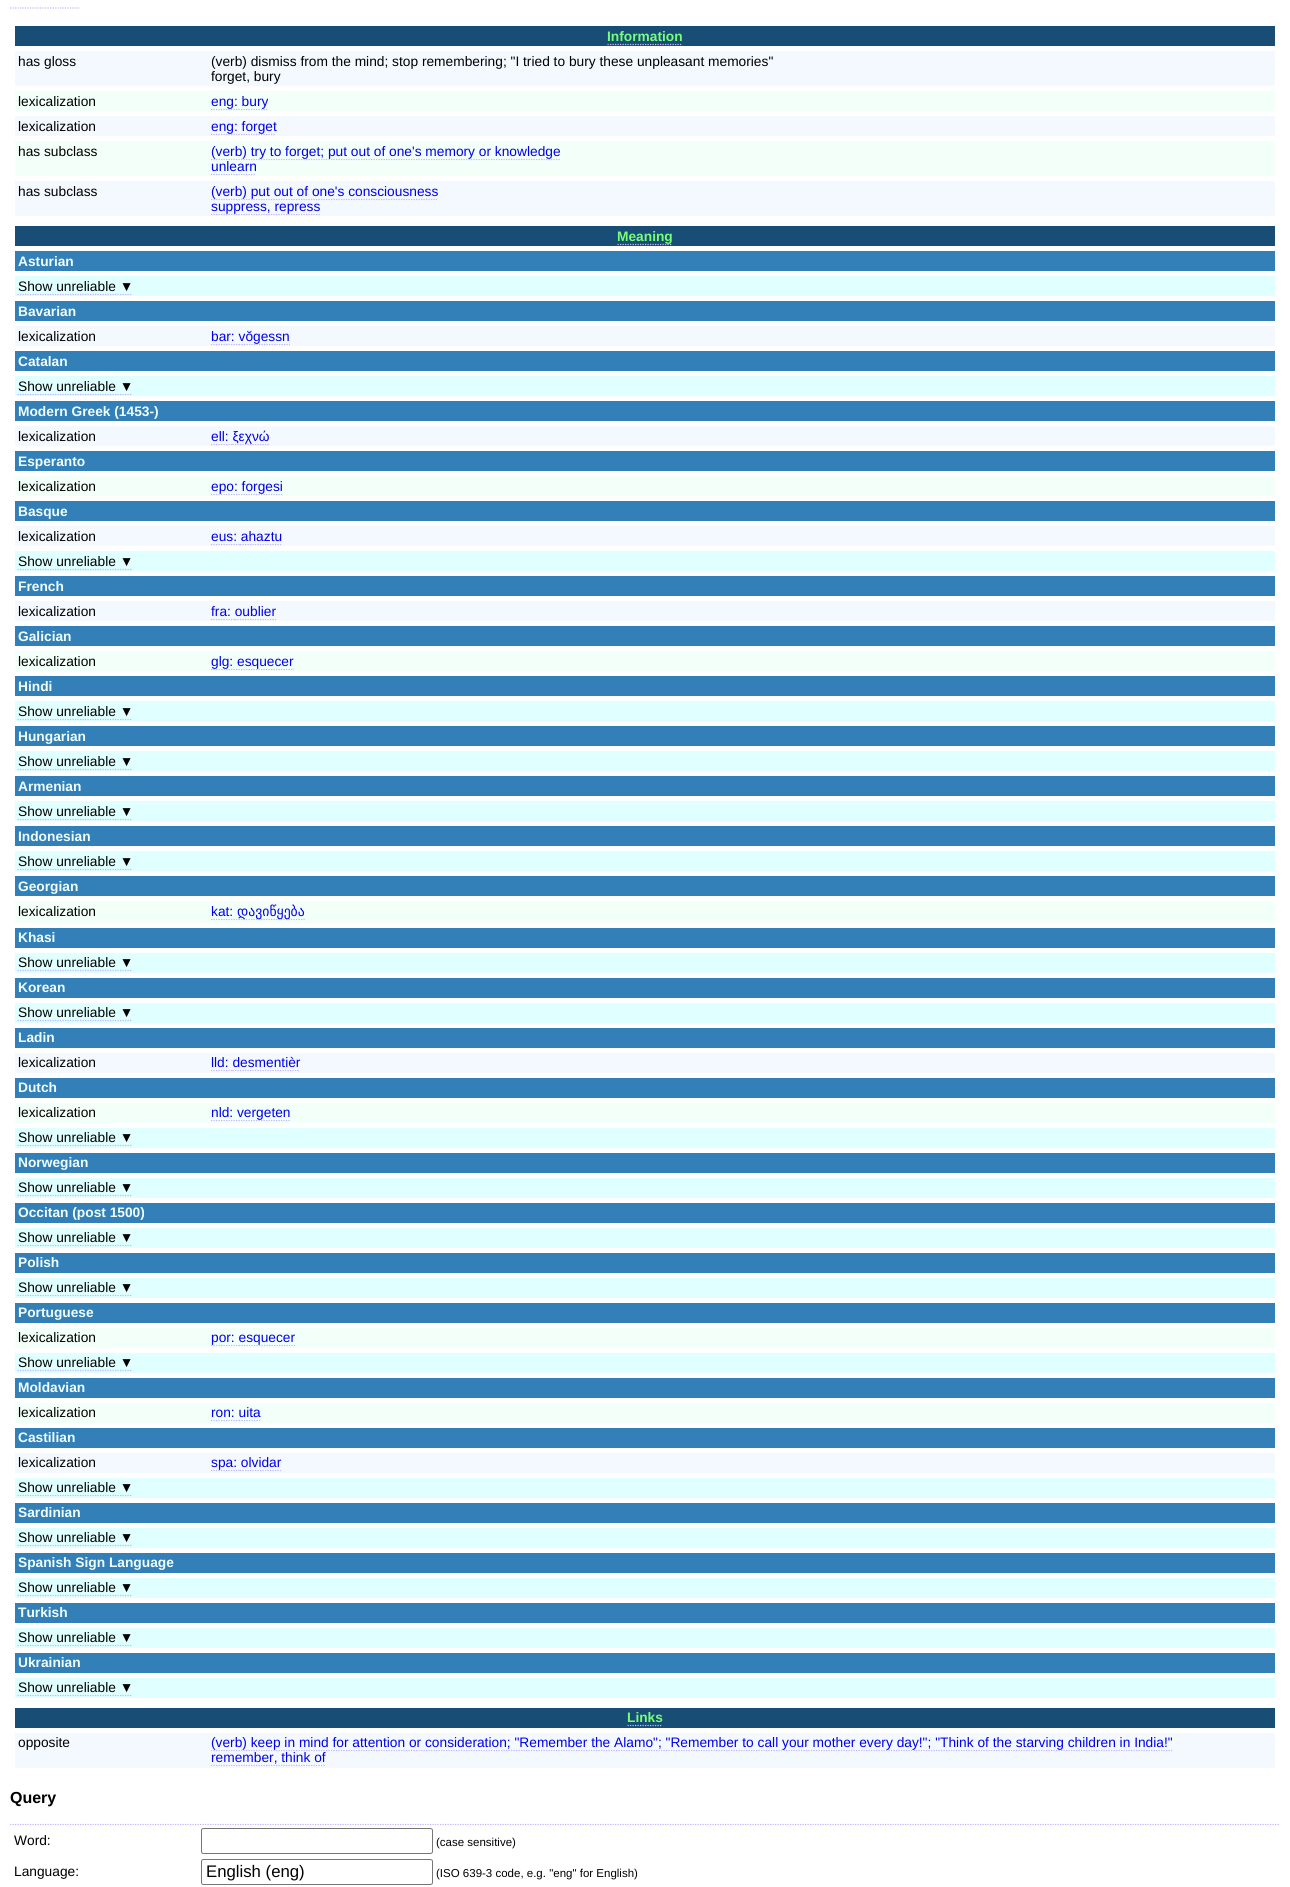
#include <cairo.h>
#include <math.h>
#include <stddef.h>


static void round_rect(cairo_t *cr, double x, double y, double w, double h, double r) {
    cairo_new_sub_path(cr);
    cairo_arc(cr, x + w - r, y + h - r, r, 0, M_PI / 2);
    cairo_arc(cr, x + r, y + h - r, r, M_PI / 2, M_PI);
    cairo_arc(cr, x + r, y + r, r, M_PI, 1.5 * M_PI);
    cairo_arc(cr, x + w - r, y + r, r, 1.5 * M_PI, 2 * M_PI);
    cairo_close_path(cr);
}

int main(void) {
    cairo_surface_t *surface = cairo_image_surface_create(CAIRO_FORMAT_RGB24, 1290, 1887);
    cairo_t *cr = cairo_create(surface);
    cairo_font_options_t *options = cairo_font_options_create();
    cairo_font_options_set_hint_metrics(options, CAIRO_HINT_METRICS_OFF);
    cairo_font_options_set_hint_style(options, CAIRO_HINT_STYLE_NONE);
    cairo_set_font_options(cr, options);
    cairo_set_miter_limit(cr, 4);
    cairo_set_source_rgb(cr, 1, 1, 1);
    cairo_paint(cr);
    cairo_new_path(cr);
    cairo_move_to(cr, 10, 8);
    cairo_line_to(cr, 79, 8);
    cairo_set_source_rgb(cr, 0.749, 0.714, 1);
    cairo_set_line_width(cr, 1.2);
    cairo_set_dash(cr, (double[]){1.25, 1.25}, 2, 0);
    cairo_stroke(cr);
    cairo_set_source_rgb(cr, 0.094, 0.302, 0.463);
    cairo_rectangle(cr, 15, 26, 1260, 20);
    cairo_fill(cr);
    cairo_select_font_face(cr, "Liberation Sans", CAIRO_FONT_SLANT_NORMAL, CAIRO_FONT_WEIGHT_BOLD);
    cairo_set_font_size(cr, 13.75);
    cairo_set_source_rgb(cr, 0.467, 1, 0.467);
    cairo_move_to(cr, 607, 41);
    cairo_show_text(cr, "Information");
    cairo_new_path(cr);
    cairo_move_to(cr, 607.5, 44.5);
    cairo_line_to(cr, 682.5, 44.5);
    cairo_set_source_rgb(cr, 0.749, 0.714, 1);
    cairo_stroke(cr);
    cairo_set_source_rgb(cr, 0.953, 0.973, 1);
    cairo_rectangle(cr, 15, 51, 1260, 35);
    cairo_fill(cr);
    cairo_select_font_face(cr, "Liberation Sans", CAIRO_FONT_SLANT_NORMAL, CAIRO_FONT_WEIGHT_NORMAL);
    cairo_set_source_rgb(cr, 0, 0, 0);
    cairo_move_to(cr, 18, 66);
    cairo_show_text(cr, "has gloss");
    cairo_move_to(cr, 211, 66);
    cairo_show_text(cr, "(verb) dismiss from the mind; stop remembering; \"I tried to bury these unpleasant memories\"");
    cairo_move_to(cr, 211, 81);
    cairo_show_text(cr, "forget, bury");
    cairo_set_source_rgb(cr, 0.953, 1, 0.973);
    cairo_rectangle(cr, 15, 91, 1260, 20);
    cairo_fill(cr);
    cairo_set_source_rgb(cr, 0, 0, 0);
    cairo_move_to(cr, 18, 106);
    cairo_show_text(cr, "lexicalization");
    cairo_new_path(cr);
    cairo_move_to(cr, 211, 109.5);
    cairo_line_to(cr, 241, 109.5);
    cairo_move_to(cr, 241, 109.5);
    cairo_line_to(cr, 267.5, 109.5);
    cairo_set_source_rgb(cr, 0.749, 0.714, 1);
    cairo_stroke(cr);
    cairo_set_source_rgb(cr, 0, 0, 0.933);
    cairo_move_to(cr, 211, 106);
    cairo_show_text(cr, "eng: bury");
    cairo_set_source_rgb(cr, 0.953, 0.973, 1);
    cairo_rectangle(cr, 15, 116, 1260, 20);
    cairo_fill(cr);
    cairo_set_source_rgb(cr, 0, 0, 0);
    cairo_move_to(cr, 18, 131);
    cairo_show_text(cr, "lexicalization");
    cairo_new_path(cr);
    cairo_move_to(cr, 211, 134.5);
    cairo_line_to(cr, 241, 134.5);
    cairo_set_source_rgb(cr, 0.749, 0.714, 1);
    cairo_stroke(cr);
    cairo_new_path(cr);
    cairo_move_to(cr, 241, 134.5);
    cairo_line_to(cr, 276, 134.5);
    cairo_stroke(cr);
    cairo_set_source_rgb(cr, 0, 0, 0.933);
    cairo_move_to(cr, 211, 131);
    cairo_show_text(cr, "eng: forget");
    cairo_set_source_rgb(cr, 0.953, 1, 0.973);
    cairo_rectangle(cr, 15, 141, 1260, 35);
    cairo_fill(cr);
    cairo_set_source_rgb(cr, 0, 0, 0);
    cairo_move_to(cr, 18, 156);
    cairo_show_text(cr, "has subclass");
    cairo_new_path(cr);
    cairo_move_to(cr, 211, 159.5);
    cairo_line_to(cr, 560, 159.5);
    cairo_set_source_rgb(cr, 0.749, 0.714, 1);
    cairo_stroke(cr);
    cairo_set_source_rgb(cr, 0, 0, 0.933);
    cairo_move_to(cr, 211, 156);
    cairo_show_text(cr, "(verb) try to forget; put out of one's memory or knowledge");
    cairo_move_to(cr, 211, 171);
    cairo_show_text(cr, "unlearn");
    cairo_new_path(cr);
    cairo_move_to(cr, 211, 174.5);
    cairo_line_to(cr, 256, 174.5);
    cairo_set_source_rgb(cr, 0.749, 0.714, 1);
    cairo_stroke(cr);
    cairo_set_source_rgb(cr, 0.953, 0.973, 1);
    cairo_rectangle(cr, 15, 181, 1260, 35);
    cairo_fill(cr);
    cairo_set_source_rgb(cr, 0, 0, 0);
    cairo_move_to(cr, 18, 196);
    cairo_show_text(cr, "has subclass");
    cairo_new_path(cr);
    cairo_move_to(cr, 211, 199.5);
    cairo_line_to(cr, 437.5, 199.5);
    cairo_set_source_rgb(cr, 0.749, 0.714, 1);
    cairo_stroke(cr);
    cairo_set_source_rgb(cr, 0, 0, 0.933);
    cairo_move_to(cr, 211, 196);
    cairo_show_text(cr, "(verb) put out of one's consciousness");
    cairo_new_path(cr);
    cairo_move_to(cr, 211, 214.5);
    cairo_line_to(cr, 320, 214.5);
    cairo_set_source_rgb(cr, 0.749, 0.714, 1);
    cairo_stroke(cr);
    cairo_set_source_rgb(cr, 0, 0, 0.933);
    cairo_move_to(cr, 211, 211);
    cairo_show_text(cr, "suppress, repress");
    cairo_set_source_rgb(cr, 0.094, 0.302, 0.463);
    cairo_rectangle(cr, 15, 226, 1260, 20);
    cairo_fill(cr);
    cairo_new_path(cr);
    cairo_move_to(cr, 617.5, 244.5);
    cairo_line_to(cr, 672.5, 244.5);
    cairo_set_source_rgb(cr, 0.749, 0.714, 1);
    cairo_stroke(cr);
    cairo_select_font_face(cr, "Liberation Sans", CAIRO_FONT_SLANT_NORMAL, CAIRO_FONT_WEIGHT_BOLD);
    cairo_set_source_rgb(cr, 0.467, 1, 0.467);
    cairo_move_to(cr, 617, 241);
    cairo_show_text(cr, "Meaning");
    cairo_set_source_rgb(cr, 0.2, 0.498, 0.722);
    cairo_rectangle(cr, 15, 251, 1260, 20);
    cairo_fill(cr);
    cairo_set_source_rgb(cr, 0.941, 1, 0.984);
    cairo_move_to(cr, 18, 266);
    cairo_show_text(cr, "Asturian");
    cairo_set_source_rgb(cr, 0.878, 1, 1);
    cairo_rectangle(cr, 15, 276, 1260, 20);
    cairo_fill(cr);
    cairo_select_font_face(cr, "Liberation Sans", CAIRO_FONT_SLANT_NORMAL, CAIRO_FONT_WEIGHT_NORMAL);
    cairo_set_source_rgb(cr, 0, 0, 0);
    cairo_move_to(cr, 18, 291);
    cairo_show_text(cr, "Show unreliable ▼");
    cairo_new_path(cr);
    cairo_move_to(cr, 17.5, 294.5);
    cairo_line_to(cr, 132.5, 294.5);
    cairo_set_source_rgb(cr, 0.749, 0.714, 1);
    cairo_stroke(cr);
    cairo_set_source_rgb(cr, 0.2, 0.498, 0.722);
    cairo_rectangle(cr, 15, 301, 1260, 20);
    cairo_fill(cr);
    cairo_select_font_face(cr, "Liberation Sans", CAIRO_FONT_SLANT_NORMAL, CAIRO_FONT_WEIGHT_BOLD);
    cairo_set_source_rgb(cr, 0.941, 1, 0.984);
    cairo_move_to(cr, 18, 316);
    cairo_show_text(cr, "Bavarian");
    cairo_set_source_rgb(cr, 0.953, 0.973, 1);
    cairo_rectangle(cr, 15, 326, 1260, 20);
    cairo_fill(cr);
    cairo_select_font_face(cr, "Liberation Sans", CAIRO_FONT_SLANT_NORMAL, CAIRO_FONT_WEIGHT_NORMAL);
    cairo_set_source_rgb(cr, 0, 0, 0);
    cairo_move_to(cr, 18, 341);
    cairo_show_text(cr, "lexicalization");
    cairo_new_path(cr);
    cairo_move_to(cr, 211, 344.5);
    cairo_line_to(cr, 239, 344.5);
    cairo_set_source_rgb(cr, 0.749, 0.714, 1);
    cairo_stroke(cr);
    cairo_new_path(cr);
    cairo_move_to(cr, 239, 344.5);
    cairo_line_to(cr, 290, 344.5);
    cairo_stroke(cr);
    cairo_set_source_rgb(cr, 0, 0, 0.933);
    cairo_move_to(cr, 211, 341);
    cairo_show_text(cr, "bar: vŏgessn");
    cairo_set_source_rgb(cr, 0.2, 0.498, 0.722);
    cairo_rectangle(cr, 15, 351, 1260, 20);
    cairo_fill(cr);
    cairo_select_font_face(cr, "Liberation Sans", CAIRO_FONT_SLANT_NORMAL, CAIRO_FONT_WEIGHT_BOLD);
    cairo_set_source_rgb(cr, 0.941, 1, 0.984);
    cairo_move_to(cr, 18, 366);
    cairo_show_text(cr, "Catalan");
    cairo_set_source_rgb(cr, 0.878, 1, 1);
    cairo_rectangle(cr, 15, 376, 1260, 20);
    cairo_fill(cr);
    cairo_select_font_face(cr, "Liberation Sans", CAIRO_FONT_SLANT_NORMAL, CAIRO_FONT_WEIGHT_NORMAL);
    cairo_set_source_rgb(cr, 0, 0, 0);
    cairo_move_to(cr, 18, 391);
    cairo_show_text(cr, "Show unreliable ▼");
    cairo_new_path(cr);
    cairo_move_to(cr, 17.5, 394.5);
    cairo_line_to(cr, 132.5, 394.5);
    cairo_set_source_rgb(cr, 0.749, 0.714, 1);
    cairo_stroke(cr);
    cairo_set_source_rgb(cr, 0.2, 0.498, 0.722);
    cairo_rectangle(cr, 15, 401, 1260, 20);
    cairo_fill(cr);
    cairo_select_font_face(cr, "Liberation Sans", CAIRO_FONT_SLANT_NORMAL, CAIRO_FONT_WEIGHT_BOLD);
    cairo_set_source_rgb(cr, 0.941, 1, 0.984);
    cairo_move_to(cr, 18, 416);
    cairo_show_text(cr, "Modern Greek (1453-)");
    cairo_set_source_rgb(cr, 0.953, 0.973, 1);
    cairo_rectangle(cr, 15, 426, 1260, 20);
    cairo_fill(cr);
    cairo_select_font_face(cr, "Liberation Sans", CAIRO_FONT_SLANT_NORMAL, CAIRO_FONT_WEIGHT_NORMAL);
    cairo_set_source_rgb(cr, 0, 0, 0);
    cairo_move_to(cr, 18, 441);
    cairo_show_text(cr, "lexicalization");
    cairo_new_path(cr);
    cairo_move_to(cr, 211, 444.5);
    cairo_line_to(cr, 232.5, 444.5);
    cairo_move_to(cr, 232.5, 444.5);
    cairo_line_to(cr, 269, 444.5);
    cairo_set_source_rgb(cr, 0.749, 0.714, 1);
    cairo_stroke(cr);
    cairo_set_source_rgb(cr, 0, 0, 0.933);
    cairo_move_to(cr, 211, 441);
    cairo_show_text(cr, "ell: ξεχνώ");
    cairo_set_source_rgb(cr, 0.2, 0.498, 0.722);
    cairo_rectangle(cr, 15, 451, 1260, 20);
    cairo_fill(cr);
    cairo_select_font_face(cr, "Liberation Sans", CAIRO_FONT_SLANT_NORMAL, CAIRO_FONT_WEIGHT_BOLD);
    cairo_set_source_rgb(cr, 0.941, 1, 0.984);
    cairo_move_to(cr, 18, 466);
    cairo_show_text(cr, "Esperanto");
    cairo_set_source_rgb(cr, 0.953, 1, 0.973);
    cairo_rectangle(cr, 15, 476, 1260, 20);
    cairo_fill(cr);
    cairo_select_font_face(cr, "Liberation Sans", CAIRO_FONT_SLANT_NORMAL, CAIRO_FONT_WEIGHT_NORMAL);
    cairo_set_source_rgb(cr, 0, 0, 0);
    cairo_move_to(cr, 18, 491);
    cairo_show_text(cr, "lexicalization");
    cairo_new_path(cr);
    cairo_move_to(cr, 211, 494.5);
    cairo_line_to(cr, 241, 494.5);
    cairo_set_source_rgb(cr, 0.749, 0.714, 1);
    cairo_stroke(cr);
    cairo_new_path(cr);
    cairo_move_to(cr, 241, 494.5);
    cairo_line_to(cr, 282.5, 494.5);
    cairo_stroke(cr);
    cairo_set_source_rgb(cr, 0, 0, 0.933);
    cairo_move_to(cr, 211, 491);
    cairo_show_text(cr, "epo: forgesi");
    cairo_set_source_rgb(cr, 0.2, 0.498, 0.722);
    cairo_rectangle(cr, 15, 501, 1260, 20);
    cairo_fill(cr);
    cairo_select_font_face(cr, "Liberation Sans", CAIRO_FONT_SLANT_NORMAL, CAIRO_FONT_WEIGHT_BOLD);
    cairo_set_source_rgb(cr, 0.941, 1, 0.984);
    cairo_move_to(cr, 18, 516);
    cairo_show_text(cr, "Basque");
    cairo_set_source_rgb(cr, 0.953, 0.973, 1);
    cairo_rectangle(cr, 15, 526, 1260, 20);
    cairo_fill(cr);
    cairo_select_font_face(cr, "Liberation Sans", CAIRO_FONT_SLANT_NORMAL, CAIRO_FONT_WEIGHT_NORMAL);
    cairo_set_source_rgb(cr, 0, 0, 0);
    cairo_move_to(cr, 18, 541);
    cairo_show_text(cr, "lexicalization");
    cairo_set_source_rgb(cr, 0, 0, 0.933);
    cairo_move_to(cr, 211, 541);
    cairo_show_text(cr, "eus: ahaztu");
    cairo_new_path(cr);
    cairo_move_to(cr, 211, 544.5);
    cairo_line_to(cr, 240, 544.5);
    cairo_set_source_rgb(cr, 0.749, 0.714, 1);
    cairo_stroke(cr);
    cairo_new_path(cr);
    cairo_move_to(cr, 240, 544.5);
    cairo_line_to(cr, 281, 544.5);
    cairo_stroke(cr);
    cairo_set_source_rgb(cr, 0.878, 1, 1);
    cairo_rectangle(cr, 15, 551, 1260, 20);
    cairo_fill(cr);
    cairo_set_source_rgb(cr, 0, 0, 0);
    cairo_move_to(cr, 18, 566);
    cairo_show_text(cr, "Show unreliable ▼");
    cairo_new_path(cr);
    cairo_move_to(cr, 17.5, 569.5);
    cairo_line_to(cr, 132.5, 569.5);
    cairo_set_source_rgb(cr, 0.749, 0.714, 1);
    cairo_stroke(cr);
    cairo_set_source_rgb(cr, 0.2, 0.498, 0.722);
    cairo_rectangle(cr, 15, 576, 1260, 20);
    cairo_fill(cr);
    cairo_select_font_face(cr, "Liberation Sans", CAIRO_FONT_SLANT_NORMAL, CAIRO_FONT_WEIGHT_BOLD);
    cairo_set_source_rgb(cr, 0.941, 1, 0.984);
    cairo_move_to(cr, 18, 591);
    cairo_show_text(cr, "French");
    cairo_set_source_rgb(cr, 0.953, 0.973, 1);
    cairo_rectangle(cr, 15, 601, 1260, 20);
    cairo_fill(cr);
    cairo_select_font_face(cr, "Liberation Sans", CAIRO_FONT_SLANT_NORMAL, CAIRO_FONT_WEIGHT_NORMAL);
    cairo_set_source_rgb(cr, 0, 0, 0);
    cairo_move_to(cr, 18, 616);
    cairo_show_text(cr, "lexicalization");
    cairo_set_source_rgb(cr, 0, 0, 0.933);
    cairo_move_to(cr, 211, 616);
    cairo_show_text(cr, "fra: oublier");
    cairo_new_path(cr);
    cairo_move_to(cr, 211, 619.5);
    cairo_line_to(cr, 235, 619.5);
    cairo_set_source_rgb(cr, 0.749, 0.714, 1);
    cairo_stroke(cr);
    cairo_new_path(cr);
    cairo_move_to(cr, 235, 619.5);
    cairo_line_to(cr, 276, 619.5);
    cairo_stroke(cr);
    cairo_set_source_rgb(cr, 0.2, 0.498, 0.722);
    cairo_rectangle(cr, 15, 626, 1260, 20);
    cairo_fill(cr);
    cairo_select_font_face(cr, "Liberation Sans", CAIRO_FONT_SLANT_NORMAL, CAIRO_FONT_WEIGHT_BOLD);
    cairo_set_source_rgb(cr, 0.941, 1, 0.984);
    cairo_move_to(cr, 18, 641);
    cairo_show_text(cr, "Galician");
    cairo_set_source_rgb(cr, 0.953, 1, 0.973);
    cairo_rectangle(cr, 15, 651, 1260, 20);
    cairo_fill(cr);
    cairo_select_font_face(cr, "Liberation Sans", CAIRO_FONT_SLANT_NORMAL, CAIRO_FONT_WEIGHT_NORMAL);
    cairo_set_source_rgb(cr, 0, 0, 0);
    cairo_move_to(cr, 18, 666);
    cairo_show_text(cr, "lexicalization");
    cairo_new_path(cr);
    cairo_move_to(cr, 211, 669.5);
    cairo_line_to(cr, 236, 669.5);
    cairo_set_source_rgb(cr, 0.749, 0.714, 1);
    cairo_stroke(cr);
    cairo_new_path(cr);
    cairo_move_to(cr, 236, 669.5);
    cairo_line_to(cr, 294, 669.5);
    cairo_stroke(cr);
    cairo_set_source_rgb(cr, 0, 0, 0.933);
    cairo_move_to(cr, 211, 666);
    cairo_show_text(cr, "glg: esquecer");
    cairo_set_source_rgb(cr, 0.2, 0.498, 0.722);
    cairo_rectangle(cr, 15, 676, 1260, 20);
    cairo_fill(cr);
    cairo_select_font_face(cr, "Liberation Sans", CAIRO_FONT_SLANT_NORMAL, CAIRO_FONT_WEIGHT_BOLD);
    cairo_set_source_rgb(cr, 0.941, 1, 0.984);
    cairo_move_to(cr, 18, 691);
    cairo_show_text(cr, "Hindi");
    cairo_set_source_rgb(cr, 0.878, 1, 1);
    cairo_rectangle(cr, 15, 701, 1260, 20);
    cairo_fill(cr);
    cairo_select_font_face(cr, "Liberation Sans", CAIRO_FONT_SLANT_NORMAL, CAIRO_FONT_WEIGHT_NORMAL);
    cairo_set_source_rgb(cr, 0, 0, 0);
    cairo_move_to(cr, 18, 716);
    cairo_show_text(cr, "Show unreliable ▼");
    cairo_new_path(cr);
    cairo_move_to(cr, 17.5, 719.5);
    cairo_line_to(cr, 132.5, 719.5);
    cairo_set_source_rgb(cr, 0.749, 0.714, 1);
    cairo_stroke(cr);
    cairo_set_source_rgb(cr, 0.2, 0.498, 0.722);
    cairo_rectangle(cr, 15, 726, 1260, 20);
    cairo_fill(cr);
    cairo_select_font_face(cr, "Liberation Sans", CAIRO_FONT_SLANT_NORMAL, CAIRO_FONT_WEIGHT_BOLD);
    cairo_set_source_rgb(cr, 0.941, 1, 0.984);
    cairo_move_to(cr, 18, 741);
    cairo_show_text(cr, "Hungarian");
    cairo_set_source_rgb(cr, 0.878, 1, 1);
    cairo_rectangle(cr, 15, 751, 1260, 20);
    cairo_fill(cr);
    cairo_select_font_face(cr, "Liberation Sans", CAIRO_FONT_SLANT_NORMAL, CAIRO_FONT_WEIGHT_NORMAL);
    cairo_set_source_rgb(cr, 0, 0, 0);
    cairo_move_to(cr, 18, 766);
    cairo_show_text(cr, "Show unreliable ▼");
    cairo_new_path(cr);
    cairo_move_to(cr, 17.5, 769.5);
    cairo_line_to(cr, 132.5, 769.5);
    cairo_set_source_rgb(cr, 0.749, 0.714, 1);
    cairo_stroke(cr);
    cairo_set_source_rgb(cr, 0.2, 0.498, 0.722);
    cairo_rectangle(cr, 15, 776, 1260, 20);
    cairo_fill(cr);
    cairo_select_font_face(cr, "Liberation Sans", CAIRO_FONT_SLANT_NORMAL, CAIRO_FONT_WEIGHT_BOLD);
    cairo_set_source_rgb(cr, 0.941, 1, 0.984);
    cairo_move_to(cr, 18, 791);
    cairo_show_text(cr, "Armenian");
    cairo_set_source_rgb(cr, 0.878, 1, 1);
    cairo_rectangle(cr, 15, 801, 1260, 20);
    cairo_fill(cr);
    cairo_select_font_face(cr, "Liberation Sans", CAIRO_FONT_SLANT_NORMAL, CAIRO_FONT_WEIGHT_NORMAL);
    cairo_set_source_rgb(cr, 0, 0, 0);
    cairo_move_to(cr, 18, 816);
    cairo_show_text(cr, "Show unreliable ▼");
    cairo_new_path(cr);
    cairo_move_to(cr, 17.5, 819.5);
    cairo_line_to(cr, 132.5, 819.5);
    cairo_set_source_rgb(cr, 0.749, 0.714, 1);
    cairo_stroke(cr);
    cairo_set_source_rgb(cr, 0.2, 0.498, 0.722);
    cairo_rectangle(cr, 15, 826, 1260, 20);
    cairo_fill(cr);
    cairo_select_font_face(cr, "Liberation Sans", CAIRO_FONT_SLANT_NORMAL, CAIRO_FONT_WEIGHT_BOLD);
    cairo_set_source_rgb(cr, 0.941, 1, 0.984);
    cairo_move_to(cr, 18, 841);
    cairo_show_text(cr, "Indonesian");
    cairo_set_source_rgb(cr, 0.878, 1, 1);
    cairo_rectangle(cr, 15, 851, 1260, 20);
    cairo_fill(cr);
    cairo_select_font_face(cr, "Liberation Sans", CAIRO_FONT_SLANT_NORMAL, CAIRO_FONT_WEIGHT_NORMAL);
    cairo_set_source_rgb(cr, 0, 0, 0);
    cairo_move_to(cr, 18, 866);
    cairo_show_text(cr, "Show unreliable ▼");
    cairo_new_path(cr);
    cairo_move_to(cr, 17.5, 869.5);
    cairo_line_to(cr, 132.5, 869.5);
    cairo_set_source_rgb(cr, 0.749, 0.714, 1);
    cairo_stroke(cr);
    cairo_set_source_rgb(cr, 0.2, 0.498, 0.722);
    cairo_rectangle(cr, 15, 876, 1260, 20);
    cairo_fill(cr);
    cairo_select_font_face(cr, "Liberation Sans", CAIRO_FONT_SLANT_NORMAL, CAIRO_FONT_WEIGHT_BOLD);
    cairo_set_source_rgb(cr, 0.941, 1, 0.984);
    cairo_move_to(cr, 18, 891);
    cairo_show_text(cr, "Georgian");
    cairo_set_source_rgb(cr, 0.953, 1, 0.973);
    cairo_rectangle(cr, 15, 901, 1260, 22);
    cairo_fill(cr);
    cairo_select_font_face(cr, "Liberation Sans", CAIRO_FONT_SLANT_NORMAL, CAIRO_FONT_WEIGHT_NORMAL);
    cairo_set_source_rgb(cr, 0, 0, 0);
    cairo_move_to(cr, 18, 916);
    cairo_show_text(cr, "lexicalization");
    cairo_set_source_rgb(cr, 0, 0, 0.933);
    cairo_move_to(cr, 211, 916);
    cairo_show_text(cr, "kat:");
    cairo_new_path(cr);
    cairo_move_to(cr, 211, 919.5);
    cairo_line_to(cr, 236, 919.5);
    cairo_set_source_rgb(cr, 0.749, 0.714, 1);
    cairo_stroke(cr);
    cairo_new_path(cr);
    cairo_move_to(cr, 236, 919.5);
    cairo_line_to(cr, 305, 919.5);
    cairo_stroke(cr);
    cairo_select_font_face(cr, "DejaVu Sans", CAIRO_FONT_SLANT_NORMAL, CAIRO_FONT_WEIGHT_NORMAL);
    cairo_set_source_rgb(cr, 0, 0, 0.933);
    cairo_move_to(cr, 237, 916);
    cairo_show_text(cr, "დავიწყება");
    cairo_set_source_rgb(cr, 0.2, 0.498, 0.722);
    cairo_rectangle(cr, 15, 928, 1260, 20);
    cairo_fill(cr);
    cairo_select_font_face(cr, "Liberation Sans", CAIRO_FONT_SLANT_NORMAL, CAIRO_FONT_WEIGHT_BOLD);
    cairo_set_source_rgb(cr, 0.941, 1, 0.984);
    cairo_move_to(cr, 18, 942);
    cairo_show_text(cr, "Khasi");
    cairo_set_source_rgb(cr, 0.878, 1, 1);
    cairo_rectangle(cr, 15, 953, 1260, 20);
    cairo_fill(cr);
    cairo_select_font_face(cr, "Liberation Sans", CAIRO_FONT_SLANT_NORMAL, CAIRO_FONT_WEIGHT_NORMAL);
    cairo_set_source_rgb(cr, 0, 0, 0);
    cairo_move_to(cr, 18, 967);
    cairo_show_text(cr, "Show unreliable ▼");
    cairo_new_path(cr);
    cairo_move_to(cr, 17.5, 970.5);
    cairo_line_to(cr, 132.5, 970.5);
    cairo_set_source_rgb(cr, 0.749, 0.714, 1);
    cairo_stroke(cr);
    cairo_set_source_rgb(cr, 0.2, 0.498, 0.722);
    cairo_rectangle(cr, 15, 978, 1260, 20);
    cairo_fill(cr);
    cairo_select_font_face(cr, "Liberation Sans", CAIRO_FONT_SLANT_NORMAL, CAIRO_FONT_WEIGHT_BOLD);
    cairo_set_source_rgb(cr, 0.941, 1, 0.984);
    cairo_move_to(cr, 18, 992);
    cairo_show_text(cr, "Korean");
    cairo_set_source_rgb(cr, 0.878, 1, 1);
    cairo_rectangle(cr, 15, 1003, 1260, 20);
    cairo_fill(cr);
    cairo_select_font_face(cr, "Liberation Sans", CAIRO_FONT_SLANT_NORMAL, CAIRO_FONT_WEIGHT_NORMAL);
    cairo_set_source_rgb(cr, 0, 0, 0);
    cairo_move_to(cr, 18, 1017);
    cairo_show_text(cr, "Show unreliable ▼");
    cairo_new_path(cr);
    cairo_move_to(cr, 17.5, 1020.5);
    cairo_line_to(cr, 132.5, 1020.5);
    cairo_set_source_rgb(cr, 0.749, 0.714, 1);
    cairo_stroke(cr);
    cairo_set_source_rgb(cr, 0.2, 0.498, 0.722);
    cairo_rectangle(cr, 15, 1028, 1260, 20);
    cairo_fill(cr);
    cairo_select_font_face(cr, "Liberation Sans", CAIRO_FONT_SLANT_NORMAL, CAIRO_FONT_WEIGHT_BOLD);
    cairo_set_source_rgb(cr, 0.941, 1, 0.984);
    cairo_move_to(cr, 18, 1042);
    cairo_show_text(cr, "Ladin");
    cairo_set_source_rgb(cr, 0.953, 0.973, 1);
    cairo_rectangle(cr, 15, 1053, 1260, 20);
    cairo_fill(cr);
    cairo_select_font_face(cr, "Liberation Sans", CAIRO_FONT_SLANT_NORMAL, CAIRO_FONT_WEIGHT_NORMAL);
    cairo_set_source_rgb(cr, 0, 0, 0);
    cairo_move_to(cr, 18, 1067);
    cairo_show_text(cr, "lexicalization");
    cairo_set_source_rgb(cr, 0, 0, 0.933);
    cairo_move_to(cr, 211, 1067);
    cairo_show_text(cr, "lld: desmentièr");
    cairo_new_path(cr);
    cairo_move_to(cr, 211, 1070.5);
    cairo_line_to(cr, 232.5, 1070.5);
    cairo_set_source_rgb(cr, 0.749, 0.714, 1);
    cairo_stroke(cr);
    cairo_new_path(cr);
    cairo_move_to(cr, 232.5, 1070.5);
    cairo_line_to(cr, 300, 1070.5);
    cairo_stroke(cr);
    cairo_set_source_rgb(cr, 0.2, 0.498, 0.722);
    cairo_rectangle(cr, 15, 1078, 1260, 20);
    cairo_fill(cr);
    cairo_select_font_face(cr, "Liberation Sans", CAIRO_FONT_SLANT_NORMAL, CAIRO_FONT_WEIGHT_BOLD);
    cairo_set_source_rgb(cr, 0.941, 1, 0.984);
    cairo_move_to(cr, 18, 1092);
    cairo_show_text(cr, "Dutch");
    cairo_set_source_rgb(cr, 0.953, 1, 0.973);
    cairo_rectangle(cr, 15, 1103, 1260, 20);
    cairo_fill(cr);
    cairo_select_font_face(cr, "Liberation Sans", CAIRO_FONT_SLANT_NORMAL, CAIRO_FONT_WEIGHT_NORMAL);
    cairo_set_source_rgb(cr, 0, 0, 0);
    cairo_move_to(cr, 18, 1117);
    cairo_show_text(cr, "lexicalization");
    cairo_new_path(cr);
    cairo_move_to(cr, 211, 1120.5);
    cairo_line_to(cr, 236, 1120.5);
    cairo_set_source_rgb(cr, 0.749, 0.714, 1);
    cairo_stroke(cr);
    cairo_new_path(cr);
    cairo_move_to(cr, 236, 1120.5);
    cairo_line_to(cr, 290, 1120.5);
    cairo_stroke(cr);
    cairo_set_source_rgb(cr, 0, 0, 0.933);
    cairo_move_to(cr, 211, 1117);
    cairo_show_text(cr, "nld: vergeten");
    cairo_set_source_rgb(cr, 0.878, 1, 1);
    cairo_rectangle(cr, 15, 1128, 1260, 20);
    cairo_fill(cr);
    cairo_set_source_rgb(cr, 0, 0, 0);
    cairo_move_to(cr, 18, 1142);
    cairo_show_text(cr, "Show unreliable ▼");
    cairo_new_path(cr);
    cairo_move_to(cr, 17.5, 1145.5);
    cairo_line_to(cr, 132.5, 1145.5);
    cairo_set_source_rgb(cr, 0.749, 0.714, 1);
    cairo_stroke(cr);
    cairo_set_source_rgb(cr, 0.2, 0.498, 0.722);
    cairo_rectangle(cr, 15, 1153, 1260, 20);
    cairo_fill(cr);
    cairo_select_font_face(cr, "Liberation Sans", CAIRO_FONT_SLANT_NORMAL, CAIRO_FONT_WEIGHT_BOLD);
    cairo_set_source_rgb(cr, 0.941, 1, 0.984);
    cairo_move_to(cr, 18, 1167);
    cairo_show_text(cr, "Norwegian");
    cairo_set_source_rgb(cr, 0.878, 1, 1);
    cairo_rectangle(cr, 15, 1178, 1260, 20);
    cairo_fill(cr);
    cairo_select_font_face(cr, "Liberation Sans", CAIRO_FONT_SLANT_NORMAL, CAIRO_FONT_WEIGHT_NORMAL);
    cairo_set_source_rgb(cr, 0, 0, 0);
    cairo_move_to(cr, 18, 1192);
    cairo_show_text(cr, "Show unreliable ▼");
    cairo_new_path(cr);
    cairo_move_to(cr, 17.5, 1195.5);
    cairo_line_to(cr, 132.5, 1195.5);
    cairo_set_source_rgb(cr, 0.749, 0.714, 1);
    cairo_stroke(cr);
    cairo_set_source_rgb(cr, 0.2, 0.498, 0.722);
    cairo_rectangle(cr, 15, 1203, 1260, 20);
    cairo_fill(cr);
    cairo_select_font_face(cr, "Liberation Sans", CAIRO_FONT_SLANT_NORMAL, CAIRO_FONT_WEIGHT_BOLD);
    cairo_set_source_rgb(cr, 0.941, 1, 0.984);
    cairo_move_to(cr, 18, 1217);
    cairo_show_text(cr, "Occitan (post 1500)");
    cairo_set_source_rgb(cr, 0.878, 1, 1);
    cairo_rectangle(cr, 15, 1228, 1260, 20);
    cairo_fill(cr);
    cairo_select_font_face(cr, "Liberation Sans", CAIRO_FONT_SLANT_NORMAL, CAIRO_FONT_WEIGHT_NORMAL);
    cairo_set_source_rgb(cr, 0, 0, 0);
    cairo_move_to(cr, 18, 1242);
    cairo_show_text(cr, "Show unreliable ▼");
    cairo_new_path(cr);
    cairo_move_to(cr, 17.5, 1245.5);
    cairo_line_to(cr, 132.5, 1245.5);
    cairo_set_source_rgb(cr, 0.749, 0.714, 1);
    cairo_stroke(cr);
    cairo_set_source_rgb(cr, 0.2, 0.498, 0.722);
    cairo_rectangle(cr, 15, 1253, 1260, 20);
    cairo_fill(cr);
    cairo_select_font_face(cr, "Liberation Sans", CAIRO_FONT_SLANT_NORMAL, CAIRO_FONT_WEIGHT_BOLD);
    cairo_set_source_rgb(cr, 0.941, 1, 0.984);
    cairo_move_to(cr, 18, 1267);
    cairo_show_text(cr, "Polish");
    cairo_set_source_rgb(cr, 0.878, 1, 1);
    cairo_rectangle(cr, 15, 1278, 1260, 20);
    cairo_fill(cr);
    cairo_select_font_face(cr, "Liberation Sans", CAIRO_FONT_SLANT_NORMAL, CAIRO_FONT_WEIGHT_NORMAL);
    cairo_set_source_rgb(cr, 0, 0, 0);
    cairo_move_to(cr, 18, 1292);
    cairo_show_text(cr, "Show unreliable ▼");
    cairo_new_path(cr);
    cairo_move_to(cr, 17.5, 1295.5);
    cairo_line_to(cr, 132.5, 1295.5);
    cairo_set_source_rgb(cr, 0.749, 0.714, 1);
    cairo_stroke(cr);
    cairo_set_source_rgb(cr, 0.2, 0.498, 0.722);
    cairo_rectangle(cr, 15, 1303, 1260, 20);
    cairo_fill(cr);
    cairo_select_font_face(cr, "Liberation Sans", CAIRO_FONT_SLANT_NORMAL, CAIRO_FONT_WEIGHT_BOLD);
    cairo_set_source_rgb(cr, 0.941, 1, 0.984);
    cairo_move_to(cr, 18, 1317);
    cairo_show_text(cr, "Portuguese");
    cairo_set_source_rgb(cr, 0.953, 1, 0.973);
    cairo_rectangle(cr, 15, 1328, 1260, 20);
    cairo_fill(cr);
    cairo_select_font_face(cr, "Liberation Sans", CAIRO_FONT_SLANT_NORMAL, CAIRO_FONT_WEIGHT_NORMAL);
    cairo_set_source_rgb(cr, 0, 0, 0);
    cairo_move_to(cr, 18, 1342);
    cairo_show_text(cr, "lexicalization");
    cairo_new_path(cr);
    cairo_move_to(cr, 211, 1345.5);
    cairo_line_to(cr, 239, 1345.5);
    cairo_set_source_rgb(cr, 0.749, 0.714, 1);
    cairo_stroke(cr);
    cairo_new_path(cr);
    cairo_move_to(cr, 239, 1345.5);
    cairo_line_to(cr, 295, 1345.5);
    cairo_stroke(cr);
    cairo_set_source_rgb(cr, 0, 0, 0.933);
    cairo_move_to(cr, 211, 1342);
    cairo_show_text(cr, "por: esquecer");
    cairo_set_source_rgb(cr, 0.878, 1, 1);
    cairo_rectangle(cr, 15, 1353, 1260, 20);
    cairo_fill(cr);
    cairo_set_source_rgb(cr, 0, 0, 0);
    cairo_move_to(cr, 18, 1367);
    cairo_show_text(cr, "Show unreliable ▼");
    cairo_new_path(cr);
    cairo_move_to(cr, 17.5, 1370.5);
    cairo_line_to(cr, 132.5, 1370.5);
    cairo_set_source_rgb(cr, 0.749, 0.714, 1);
    cairo_stroke(cr);
    cairo_set_source_rgb(cr, 0.2, 0.498, 0.722);
    cairo_rectangle(cr, 15, 1378, 1260, 20);
    cairo_fill(cr);
    cairo_select_font_face(cr, "Liberation Sans", CAIRO_FONT_SLANT_NORMAL, CAIRO_FONT_WEIGHT_BOLD);
    cairo_set_source_rgb(cr, 0.941, 1, 0.984);
    cairo_move_to(cr, 18, 1392);
    cairo_show_text(cr, "Moldavian");
    cairo_set_source_rgb(cr, 0.953, 1, 0.973);
    cairo_rectangle(cr, 15, 1403, 1260, 20);
    cairo_fill(cr);
    cairo_select_font_face(cr, "Liberation Sans", CAIRO_FONT_SLANT_NORMAL, CAIRO_FONT_WEIGHT_NORMAL);
    cairo_set_source_rgb(cr, 0, 0, 0);
    cairo_move_to(cr, 18, 1417);
    cairo_show_text(cr, "lexicalization");
    cairo_set_source_rgb(cr, 0, 0, 0.933);
    cairo_move_to(cr, 211, 1417);
    cairo_show_text(cr, "ron: uita");
    cairo_new_path(cr);
    cairo_move_to(cr, 211, 1420.5);
    cairo_line_to(cr, 239, 1420.5);
    cairo_move_to(cr, 239, 1420.5);
    cairo_line_to(cr, 260, 1420.5);
    cairo_set_source_rgb(cr, 0.749, 0.714, 1);
    cairo_stroke(cr);
    cairo_set_source_rgb(cr, 0.2, 0.498, 0.722);
    cairo_rectangle(cr, 15, 1428, 1260, 20);
    cairo_fill(cr);
    cairo_select_font_face(cr, "Liberation Sans", CAIRO_FONT_SLANT_NORMAL, CAIRO_FONT_WEIGHT_BOLD);
    cairo_set_source_rgb(cr, 0.941, 1, 0.984);
    cairo_move_to(cr, 18, 1442);
    cairo_show_text(cr, "Castilian");
    cairo_set_source_rgb(cr, 0.953, 0.973, 1);
    cairo_rectangle(cr, 15, 1453, 1260, 20);
    cairo_fill(cr);
    cairo_select_font_face(cr, "Liberation Sans", CAIRO_FONT_SLANT_NORMAL, CAIRO_FONT_WEIGHT_NORMAL);
    cairo_set_source_rgb(cr, 0, 0, 0);
    cairo_move_to(cr, 18, 1467);
    cairo_show_text(cr, "lexicalization");
    cairo_new_path(cr);
    cairo_move_to(cr, 211, 1470.5);
    cairo_line_to(cr, 240, 1470.5);
    cairo_set_source_rgb(cr, 0.749, 0.714, 1);
    cairo_stroke(cr);
    cairo_new_path(cr);
    cairo_move_to(cr, 240, 1470.5);
    cairo_line_to(cr, 281, 1470.5);
    cairo_stroke(cr);
    cairo_set_source_rgb(cr, 0, 0, 0.933);
    cairo_move_to(cr, 211, 1467);
    cairo_show_text(cr, "spa: olvidar");
    cairo_set_source_rgb(cr, 0.878, 1, 1);
    cairo_rectangle(cr, 15, 1478, 1260, 20);
    cairo_fill(cr);
    cairo_set_source_rgb(cr, 0, 0, 0);
    cairo_move_to(cr, 18, 1492);
    cairo_show_text(cr, "Show unreliable ▼");
    cairo_new_path(cr);
    cairo_move_to(cr, 17.5, 1495.5);
    cairo_line_to(cr, 132.5, 1495.5);
    cairo_set_source_rgb(cr, 0.749, 0.714, 1);
    cairo_stroke(cr);
    cairo_set_source_rgb(cr, 0.2, 0.498, 0.722);
    cairo_rectangle(cr, 15, 1503, 1260, 20);
    cairo_fill(cr);
    cairo_select_font_face(cr, "Liberation Sans", CAIRO_FONT_SLANT_NORMAL, CAIRO_FONT_WEIGHT_BOLD);
    cairo_set_source_rgb(cr, 0.941, 1, 0.984);
    cairo_move_to(cr, 18, 1517);
    cairo_show_text(cr, "Sardinian");
    cairo_set_source_rgb(cr, 0.878, 1, 1);
    cairo_rectangle(cr, 15, 1528, 1260, 20);
    cairo_fill(cr);
    cairo_select_font_face(cr, "Liberation Sans", CAIRO_FONT_SLANT_NORMAL, CAIRO_FONT_WEIGHT_NORMAL);
    cairo_set_source_rgb(cr, 0, 0, 0);
    cairo_move_to(cr, 18, 1542);
    cairo_show_text(cr, "Show unreliable ▼");
    cairo_new_path(cr);
    cairo_move_to(cr, 17.5, 1545.5);
    cairo_line_to(cr, 132.5, 1545.5);
    cairo_set_source_rgb(cr, 0.749, 0.714, 1);
    cairo_stroke(cr);
    cairo_set_source_rgb(cr, 0.2, 0.498, 0.722);
    cairo_rectangle(cr, 15, 1553, 1260, 20);
    cairo_fill(cr);
    cairo_select_font_face(cr, "Liberation Sans", CAIRO_FONT_SLANT_NORMAL, CAIRO_FONT_WEIGHT_BOLD);
    cairo_set_source_rgb(cr, 0.941, 1, 0.984);
    cairo_move_to(cr, 18, 1567);
    cairo_show_text(cr, "Spanish Sign Language");
    cairo_set_source_rgb(cr, 0.878, 1, 1);
    cairo_rectangle(cr, 15, 1578, 1260, 20);
    cairo_fill(cr);
    cairo_select_font_face(cr, "Liberation Sans", CAIRO_FONT_SLANT_NORMAL, CAIRO_FONT_WEIGHT_NORMAL);
    cairo_set_source_rgb(cr, 0, 0, 0);
    cairo_move_to(cr, 18, 1592);
    cairo_show_text(cr, "Show unreliable ▼");
    cairo_new_path(cr);
    cairo_move_to(cr, 17.5, 1595.5);
    cairo_line_to(cr, 132.5, 1595.5);
    cairo_set_source_rgb(cr, 0.749, 0.714, 1);
    cairo_stroke(cr);
    cairo_set_source_rgb(cr, 0.2, 0.498, 0.722);
    cairo_rectangle(cr, 15, 1603, 1260, 20);
    cairo_fill(cr);
    cairo_select_font_face(cr, "Liberation Sans", CAIRO_FONT_SLANT_NORMAL, CAIRO_FONT_WEIGHT_BOLD);
    cairo_set_source_rgb(cr, 0.941, 1, 0.984);
    cairo_move_to(cr, 18, 1617);
    cairo_show_text(cr, "Turkish");
    cairo_set_source_rgb(cr, 0.878, 1, 1);
    cairo_rectangle(cr, 15, 1628, 1260, 20);
    cairo_fill(cr);
    cairo_select_font_face(cr, "Liberation Sans", CAIRO_FONT_SLANT_NORMAL, CAIRO_FONT_WEIGHT_NORMAL);
    cairo_set_source_rgb(cr, 0, 0, 0);
    cairo_move_to(cr, 18, 1642);
    cairo_show_text(cr, "Show unreliable ▼");
    cairo_new_path(cr);
    cairo_move_to(cr, 17.5, 1645.5);
    cairo_line_to(cr, 132.5, 1645.5);
    cairo_set_source_rgb(cr, 0.749, 0.714, 1);
    cairo_stroke(cr);
    cairo_set_source_rgb(cr, 0.2, 0.498, 0.722);
    cairo_rectangle(cr, 15, 1653, 1260, 20);
    cairo_fill(cr);
    cairo_select_font_face(cr, "Liberation Sans", CAIRO_FONT_SLANT_NORMAL, CAIRO_FONT_WEIGHT_BOLD);
    cairo_set_source_rgb(cr, 0.941, 1, 0.984);
    cairo_move_to(cr, 18, 1667);
    cairo_show_text(cr, "Ukrainian");
    cairo_set_source_rgb(cr, 0.878, 1, 1);
    cairo_rectangle(cr, 15, 1678, 1260, 20);
    cairo_fill(cr);
    cairo_select_font_face(cr, "Liberation Sans", CAIRO_FONT_SLANT_NORMAL, CAIRO_FONT_WEIGHT_NORMAL);
    cairo_set_source_rgb(cr, 0, 0, 0);
    cairo_move_to(cr, 18, 1692);
    cairo_show_text(cr, "Show unreliable ▼");
    cairo_new_path(cr);
    cairo_move_to(cr, 17.5, 1695.5);
    cairo_line_to(cr, 132.5, 1695.5);
    cairo_set_source_rgb(cr, 0.749, 0.714, 1);
    cairo_stroke(cr);
    cairo_set_source_rgb(cr, 0.094, 0.302, 0.463);
    cairo_rectangle(cr, 15, 1708, 1260, 20);
    cairo_fill(cr);
    cairo_select_font_face(cr, "Liberation Sans", CAIRO_FONT_SLANT_NORMAL, CAIRO_FONT_WEIGHT_BOLD);
    cairo_set_source_rgb(cr, 0.467, 1, 0.467);
    cairo_move_to(cr, 627, 1722);
    cairo_show_text(cr, "Links");
    cairo_new_path(cr);
    cairo_move_to(cr, 627.5, 1725.5);
    cairo_line_to(cr, 662.5, 1725.5);
    cairo_set_source_rgb(cr, 0.749, 0.714, 1);
    cairo_stroke(cr);
    cairo_set_source_rgb(cr, 0.953, 0.973, 1);
    cairo_rectangle(cr, 15, 1733, 1260, 35);
    cairo_fill(cr);
    cairo_select_font_face(cr, "Liberation Sans", CAIRO_FONT_SLANT_NORMAL, CAIRO_FONT_WEIGHT_NORMAL);
    cairo_set_source_rgb(cr, 0, 0, 0);
    cairo_move_to(cr, 18, 1747);
    cairo_show_text(cr, "opposite");
    cairo_new_path(cr);
    cairo_move_to(cr, 211, 1750.5);
    cairo_line_to(cr, 1172.5, 1750.5);
    cairo_set_source_rgb(cr, 0.749, 0.714, 1);
    cairo_stroke(cr);
    cairo_set_source_rgb(cr, 0, 0, 0.933);
    cairo_move_to(cr, 211, 1747);
    cairo_show_text(cr, "(verb) keep in mind for attention or consideration; \"Remember the Alamo\"; \"Remember to call your mother every day!\"; \"Think of the starving children in India!\"");
    cairo_move_to(cr, 211, 1762);
    cairo_show_text(cr, "remember, think of");
    cairo_new_path(cr);
    cairo_move_to(cr, 211, 1765.5);
    cairo_line_to(cr, 325, 1765.5);
    cairo_set_source_rgb(cr, 0.749, 0.714, 1);
    cairo_stroke(cr);
    cairo_new_path(cr);
    cairo_move_to(cr, 10, 1824.5);
    cairo_line_to(cr, 1280, 1824.5);
    cairo_stroke(cr);
    cairo_select_font_face(cr, "Liberation Sans", CAIRO_FONT_SLANT_NORMAL, CAIRO_FONT_WEIGHT_BOLD);
    cairo_set_font_size(cr, 16);
    cairo_set_source_rgb(cr, 0, 0, 0);
    cairo_move_to(cr, 10, 1803);
    cairo_show_text(cr, "Query");
    cairo_select_font_face(cr, "Liberation Sans", CAIRO_FONT_SLANT_NORMAL, CAIRO_FONT_WEIGHT_NORMAL);
    cairo_set_font_size(cr, 13.75);
    cairo_move_to(cr, 14, 1845);
    cairo_show_text(cr, "Word:");
    round_rect(cr, 201.5, 1828.5, 231, 25, 2);
    cairo_set_source_rgb(cr, 0.463, 0.463, 0.463);
    cairo_set_line_width(cr, 1);
    cairo_set_dash(cr, NULL, 0, 0);
    cairo_stroke(cr);
    cairo_set_font_size(cr, 11.5);
    cairo_set_source_rgb(cr, 0, 0, 0);
    cairo_move_to(cr, 436, 1846);
    cairo_show_text(cr, "(case sensitive)");
    cairo_set_font_size(cr, 13.75);
    cairo_move_to(cr, 14, 1876);
    cairo_show_text(cr, "Language:");
    round_rect(cr, 201.5, 1859.5, 231, 25, 2);
    cairo_set_source_rgb(cr, 0.463, 0.463, 0.463);
    cairo_stroke(cr);
    cairo_set_font_size(cr, 16.75);
    cairo_set_source_rgb(cr, 0, 0, 0);
    cairo_move_to(cr, 206, 1877);
    cairo_show_text(cr, "English (eng)");
    cairo_set_font_size(cr, 11.5);
    cairo_move_to(cr, 436, 1877);
    cairo_show_text(cr, "(ISO 639-3 code, e.g. \"eng\" for English)");
    cairo_surface_write_to_png(surface, "page.png");
    cairo_font_options_destroy(options);
    cairo_destroy(cr);
    cairo_surface_destroy(surface);
    return 0;
}
